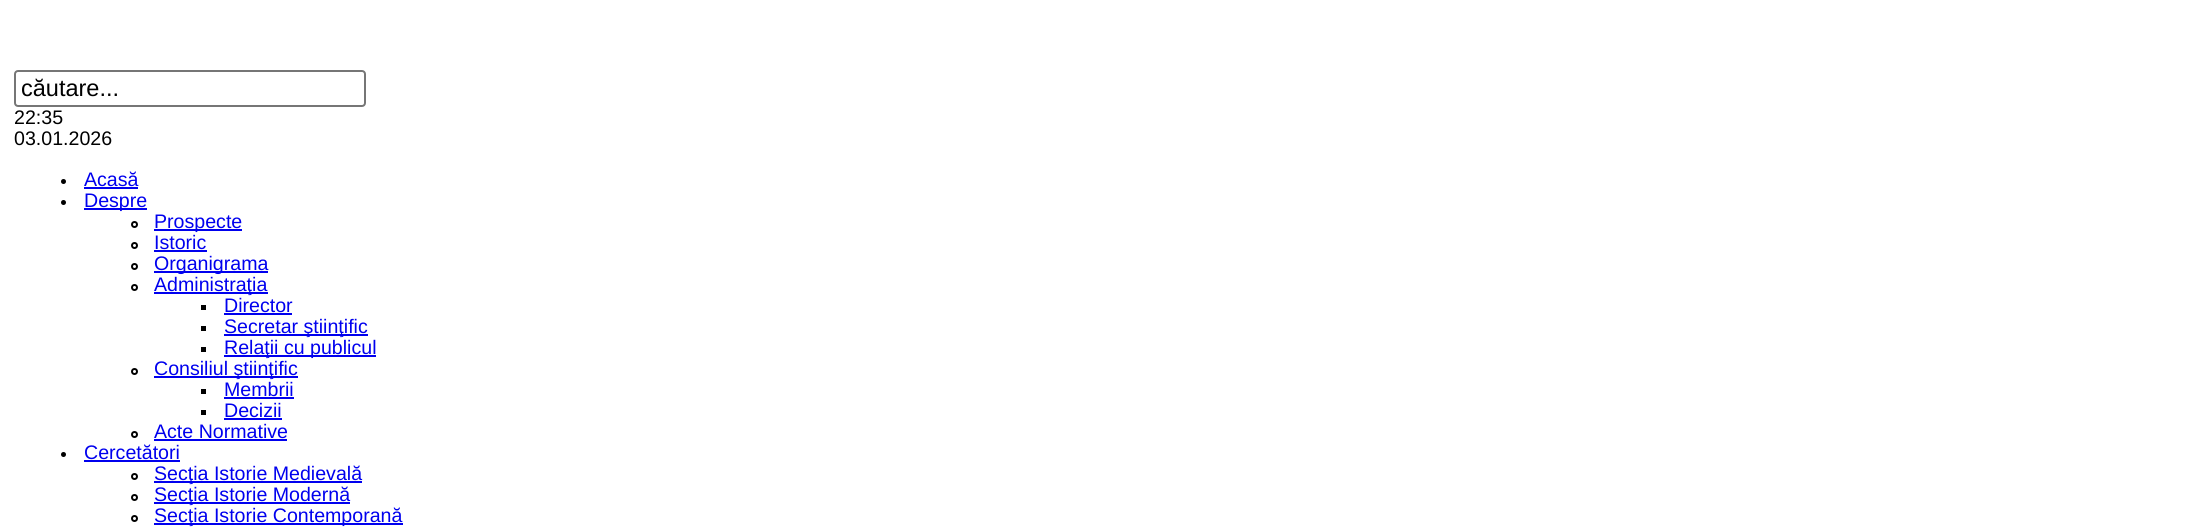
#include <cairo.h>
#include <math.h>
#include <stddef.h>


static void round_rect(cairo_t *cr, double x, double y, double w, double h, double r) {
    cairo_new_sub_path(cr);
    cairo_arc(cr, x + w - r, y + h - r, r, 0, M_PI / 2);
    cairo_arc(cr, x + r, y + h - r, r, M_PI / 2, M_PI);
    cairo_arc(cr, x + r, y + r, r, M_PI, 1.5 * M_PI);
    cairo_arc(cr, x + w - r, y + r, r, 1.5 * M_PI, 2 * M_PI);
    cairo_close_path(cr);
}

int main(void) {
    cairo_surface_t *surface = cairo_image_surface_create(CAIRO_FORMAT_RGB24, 2187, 531);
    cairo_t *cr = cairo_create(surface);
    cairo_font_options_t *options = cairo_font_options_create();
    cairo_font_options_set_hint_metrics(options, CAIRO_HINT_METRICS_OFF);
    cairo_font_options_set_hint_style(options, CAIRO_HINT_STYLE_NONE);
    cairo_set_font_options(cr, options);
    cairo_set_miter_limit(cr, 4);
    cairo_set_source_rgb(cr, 1, 1, 1);
    cairo_paint(cr);
    round_rect(cr, 15, 71, 350, 35, 3);
    cairo_set_source_rgb(cr, 0.463, 0.463, 0.463);
    cairo_stroke(cr);
    cairo_select_font_face(cr, "Liberation Sans", CAIRO_FONT_SLANT_NORMAL, CAIRO_FONT_WEIGHT_NORMAL);
    cairo_set_font_size(cr, 23.5);
    cairo_set_source_rgb(cr, 0, 0, 0);
    cairo_move_to(cr, 21, 96);
    cairo_show_text(cr, "căutare...");
    cairo_set_font_size(cr, 19.6);
    cairo_move_to(cr, 14, 124);
    cairo_show_text(cr, "22:35");
    cairo_move_to(cr, 14, 145);
    cairo_show_text(cr, "03.01.2026");
    cairo_new_path(cr);
    cairo_arc(cr, 63.5, 181.5, 2.5, 0, 2 * M_PI);
    cairo_fill(cr);
    cairo_set_source_rgb(cr, 0, 0, 0.933);
    cairo_move_to(cr, 84, 186);
    cairo_show_text(cr, "Acasă");
    cairo_rectangle(cr, 84, 187, 54, 2);
    cairo_fill(cr);
    cairo_set_source_rgb(cr, 0, 0, 0);
    cairo_arc(cr, 63.5, 202.5, 2.5, 0, 2 * M_PI);
    cairo_fill(cr);
    cairo_set_source_rgb(cr, 0, 0, 0.933);
    cairo_rectangle(cr, 84, 208, 63, 2);
    cairo_fill(cr);
    cairo_move_to(cr, 84, 207);
    cairo_show_text(cr, "Despre");
    cairo_new_path(cr);
    cairo_arc(cr, 134.5, 224.5, 2.5, 0, 2 * M_PI);
    cairo_set_source_rgb(cr, 0, 0, 0);
    cairo_stroke(cr);
    cairo_set_source_rgb(cr, 0, 0, 0.933);
    cairo_rectangle(cr, 154, 229, 88, 2);
    cairo_fill(cr);
    cairo_move_to(cr, 154, 228);
    cairo_show_text(cr, "Prospecte");
    cairo_new_path(cr);
    cairo_arc(cr, 134.5, 245.5, 2.5, 0, 2 * M_PI);
    cairo_set_source_rgb(cr, 0, 0, 0);
    cairo_stroke(cr);
    cairo_set_source_rgb(cr, 0, 0, 0.933);
    cairo_move_to(cr, 154, 249);
    cairo_show_text(cr, "Istoric");
    cairo_rectangle(cr, 154, 250, 53, 2);
    cairo_fill(cr);
    cairo_arc(cr, 134.5, 266.5, 2.5, 0, 2 * M_PI);
    cairo_set_source_rgb(cr, 0, 0, 0);
    cairo_stroke(cr);
    cairo_set_source_rgb(cr, 0, 0, 0.933);
    cairo_rectangle(cr, 154, 271, 114, 2);
    cairo_fill(cr);
    cairo_move_to(cr, 154, 270);
    cairo_show_text(cr, "Organigrama");
    cairo_new_path(cr);
    cairo_arc(cr, 134.5, 287.5, 2.5, 0, 2 * M_PI);
    cairo_set_source_rgb(cr, 0, 0, 0);
    cairo_stroke(cr);
    cairo_set_source_rgb(cr, 0, 0, 0.933);
    cairo_rectangle(cr, 154, 292, 114, 2);
    cairo_fill(cr);
    cairo_move_to(cr, 154, 291);
    cairo_show_text(cr, "Administraţia");
    cairo_set_source_rgb(cr, 0, 0, 0);
    cairo_rectangle(cr, 201, 305, 5, 5);
    cairo_fill(cr);
    cairo_set_source_rgb(cr, 0, 0, 0.933);
    cairo_move_to(cr, 224, 312);
    cairo_show_text(cr, "Director");
    cairo_rectangle(cr, 224, 313, 68, 2);
    cairo_fill(cr);
    cairo_set_source_rgb(cr, 0, 0, 0);
    cairo_rectangle(cr, 201, 326, 5, 5);
    cairo_fill(cr);
    cairo_set_source_rgb(cr, 0, 0, 0.933);
    cairo_rectangle(cr, 224, 334, 144, 2);
    cairo_fill(cr);
    cairo_move_to(cr, 224, 333);
    cairo_show_text(cr, "Secretar ştiinţific");
    cairo_set_source_rgb(cr, 0, 0, 0);
    cairo_rectangle(cr, 201, 347, 5, 5);
    cairo_fill(cr);
    cairo_set_source_rgb(cr, 0, 0, 0.933);
    cairo_rectangle(cr, 224, 355, 152, 2);
    cairo_fill(cr);
    cairo_move_to(cr, 224, 354);
    cairo_show_text(cr, "Relaţii cu publicul");
    cairo_new_path(cr);
    cairo_arc(cr, 134.5, 371.5, 2.5, 0, 2 * M_PI);
    cairo_set_source_rgb(cr, 0, 0, 0);
    cairo_stroke(cr);
    cairo_set_source_rgb(cr, 0, 0, 0.933);
    cairo_rectangle(cr, 154, 376, 144, 2);
    cairo_fill(cr);
    cairo_move_to(cr, 154, 375);
    cairo_show_text(cr, "Consiliul ştiinţific");
    cairo_set_source_rgb(cr, 0, 0, 0);
    cairo_rectangle(cr, 201, 389, 5, 5);
    cairo_fill(cr);
    cairo_set_source_rgb(cr, 0, 0, 0.933);
    cairo_move_to(cr, 224, 396);
    cairo_show_text(cr, "Membrii");
    cairo_rectangle(cr, 224, 397, 70, 2);
    cairo_fill(cr);
    cairo_set_source_rgb(cr, 0, 0, 0);
    cairo_rectangle(cr, 201, 410, 5, 5);
    cairo_fill(cr);
    cairo_set_source_rgb(cr, 0, 0, 0.933);
    cairo_move_to(cr, 224, 417);
    cairo_show_text(cr, "Decizii");
    cairo_rectangle(cr, 224, 418, 58, 2);
    cairo_fill(cr);
    cairo_arc(cr, 134.5, 434.5, 2.5, 0, 2 * M_PI);
    cairo_set_source_rgb(cr, 0, 0, 0);
    cairo_stroke(cr);
    cairo_set_source_rgb(cr, 0, 0, 0.933);
    cairo_move_to(cr, 154, 438);
    cairo_show_text(cr, "Acte Normative");
    cairo_rectangle(cr, 154, 439, 133, 2);
    cairo_fill(cr);
    cairo_set_source_rgb(cr, 0, 0, 0);
    cairo_arc(cr, 63.5, 454.5, 2.5, 0, 2 * M_PI);
    cairo_fill(cr);
    cairo_set_source_rgb(cr, 0, 0, 0.933);
    cairo_move_to(cr, 84, 459);
    cairo_show_text(cr, "Cercetători");
    cairo_rectangle(cr, 84, 460, 96, 2);
    cairo_fill(cr);
    cairo_arc(cr, 134.5, 476.5, 2.5, 0, 2 * M_PI);
    cairo_set_source_rgb(cr, 0, 0, 0);
    cairo_stroke(cr);
    cairo_set_source_rgb(cr, 0, 0, 0.933);
    cairo_rectangle(cr, 154, 481, 208, 2);
    cairo_fill(cr);
    cairo_move_to(cr, 154, 480);
    cairo_show_text(cr, "Secţia Istorie Medievală");
    cairo_new_path(cr);
    cairo_arc(cr, 134.5, 497.5, 2.5, 0, 2 * M_PI);
    cairo_set_source_rgb(cr, 0, 0, 0);
    cairo_stroke(cr);
    cairo_set_source_rgb(cr, 0, 0, 0.933);
    cairo_rectangle(cr, 154, 502, 196, 2);
    cairo_fill(cr);
    cairo_move_to(cr, 154, 501);
    cairo_show_text(cr, "Secţia Istorie Modernă");
    cairo_new_path(cr);
    cairo_arc(cr, 134.5, 518.5, 2.5, 0, 2 * M_PI);
    cairo_set_source_rgb(cr, 0, 0, 0);
    cairo_stroke(cr);
    cairo_set_source_rgb(cr, 0, 0, 0.933);
    cairo_rectangle(cr, 154, 523, 249, 2);
    cairo_fill(cr);
    cairo_move_to(cr, 154, 522);
    cairo_show_text(cr, "Secţia Istorie Contemporană");
    cairo_surface_write_to_png(surface, "page.png");
    cairo_font_options_destroy(options);
    cairo_destroy(cr);
    cairo_surface_destroy(surface);
    return 0;
}
